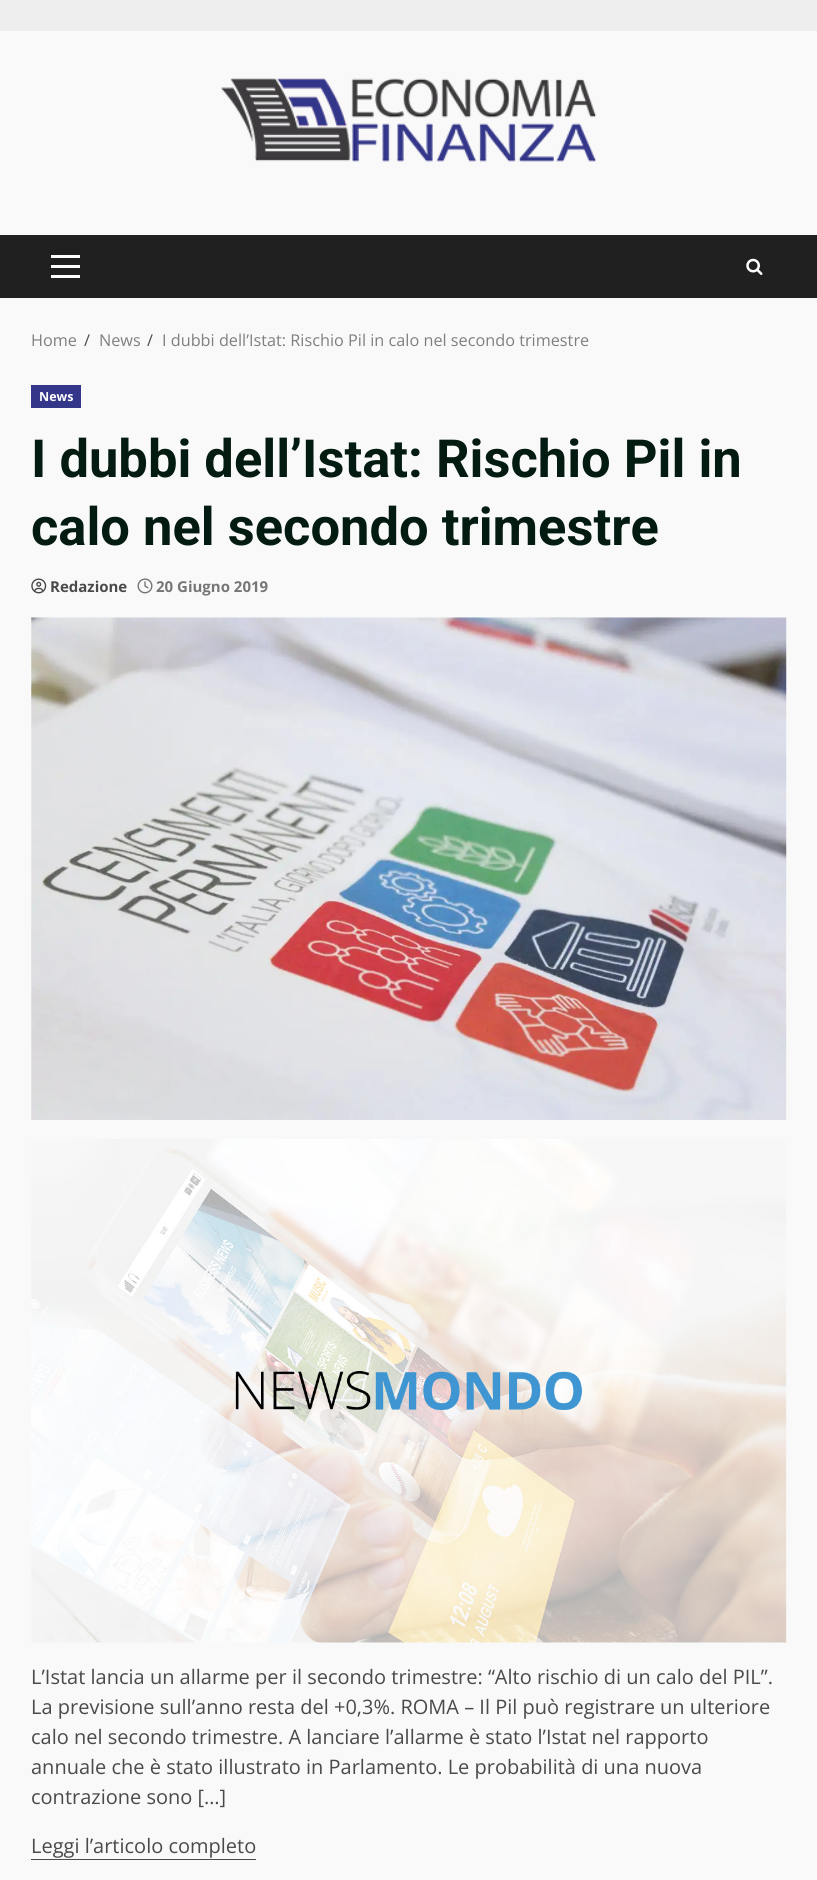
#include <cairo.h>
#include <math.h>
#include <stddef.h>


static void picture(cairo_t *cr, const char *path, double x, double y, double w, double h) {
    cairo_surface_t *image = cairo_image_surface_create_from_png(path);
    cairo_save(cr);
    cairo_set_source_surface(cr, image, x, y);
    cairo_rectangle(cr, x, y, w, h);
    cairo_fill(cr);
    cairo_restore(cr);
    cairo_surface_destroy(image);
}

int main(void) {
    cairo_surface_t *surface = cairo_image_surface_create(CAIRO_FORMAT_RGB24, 817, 1880);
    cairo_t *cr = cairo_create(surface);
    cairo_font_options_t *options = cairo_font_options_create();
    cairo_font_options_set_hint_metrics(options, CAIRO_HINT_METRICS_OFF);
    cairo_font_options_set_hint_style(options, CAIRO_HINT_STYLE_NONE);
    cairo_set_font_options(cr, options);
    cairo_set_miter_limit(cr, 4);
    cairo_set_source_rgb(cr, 0.933, 0.933, 0.933);
    cairo_paint(cr);
    cairo_set_source_rgb(cr, 0.976, 0.976, 0.976);
    cairo_rectangle(cr, 0, 31, 817, 1849);
    cairo_fill(cr);
    picture(cr, "img1.png", 221, 78, 376, 84);
    cairo_set_source_rgb(cr, 0.125, 0.125, 0.125);
    cairo_rectangle(cr, 0, 235, 817, 63);
    cairo_fill(cr);
    cairo_set_source_rgb(cr, 1, 1, 1);
    cairo_rectangle(cr, 51, 265, 29, 3);
    cairo_fill(cr);
    cairo_rectangle(cr, 51, 255, 29, 3);
    cairo_fill(cr);
    cairo_rectangle(cr, 51, 275, 29, 3);
    cairo_fill(cr);
    picture(cr, "img2.png", 746, 258, 17, 17);
    cairo_select_font_face(cr, "Open Sans", CAIRO_FONT_SLANT_NORMAL, CAIRO_FONT_WEIGHT_NORMAL);
    cairo_set_font_size(cr, 16.25);
    cairo_set_source_rgb(cr, 0.498, 0.498, 0.498);
    cairo_move_to(cr, 31, 346);
    cairo_show_text(cr, "Home");
    cairo_set_source_rgb(cr, 0.29, 0.29, 0.29);
    cairo_move_to(cr, 84, 346);
    cairo_show_text(cr, "/");
    cairo_set_source_rgb(cr, 0.498, 0.498, 0.498);
    cairo_move_to(cr, 99, 346);
    cairo_show_text(cr, "News");
    cairo_set_source_rgb(cr, 0.29, 0.29, 0.29);
    cairo_move_to(cr, 147, 346);
    cairo_show_text(cr, "/");
    cairo_set_source_rgb(cr, 0.498, 0.498, 0.498);
    cairo_move_to(cr, 162, 346);
    cairo_show_text(cr, "I dubbi dell’Istat: Rischio Pil in calo nel secondo trimestre");
    cairo_set_source_rgb(cr, 0.204, 0.216, 0.537);
    cairo_rectangle(cr, 31, 385, 50, 23);
    cairo_fill(cr);
    cairo_select_font_face(cr, "Open Sans", CAIRO_FONT_SLANT_NORMAL, CAIRO_FONT_WEIGHT_BOLD);
    cairo_set_font_size(cr, 12.5);
    cairo_set_source_rgb(cr, 1, 1, 1);
    cairo_move_to(cr, 39, 401);
    cairo_show_text(cr, "News");
    cairo_select_font_face(cr, "Roboto", CAIRO_FONT_SLANT_NORMAL, CAIRO_FONT_WEIGHT_BOLD);
    cairo_set_font_size(cr, 52.5);
    cairo_set_source_rgb(cr, 0.012, 0.106, 0.067);
    cairo_move_to(cr, 31, 477);
    cairo_show_text(cr, "I dubbi dell’Istat: Rischio Pil in");
    cairo_move_to(cr, 31, 545);
    cairo_show_text(cr, "calo nel secondo trimestre");
    picture(cr, "img3.png", 31, 578, 16, 16);
    cairo_select_font_face(cr, "Open Sans", CAIRO_FONT_SLANT_NORMAL, CAIRO_FONT_WEIGHT_BOLD);
    cairo_set_font_size(cr, 15);
    cairo_set_source_rgb(cr, 0.29, 0.29, 0.29);
    cairo_move_to(cr, 50, 592);
    cairo_show_text(cr, "Redazione");
    picture(cr, "img4.png", 137, 578, 16, 16);
    cairo_set_source_rgb(cr, 0.463, 0.463, 0.463);
    cairo_move_to(cr, 156, 592);
    cairo_show_text(cr, "20 Giugno 2019");
    picture(cr, "img5.png", 31, 617, 756, 503);
    picture(cr, "img6.png", 31, 1139, 756, 504);
    cairo_select_font_face(cr, "Open Sans", CAIRO_FONT_SLANT_NORMAL, CAIRO_FONT_WEIGHT_NORMAL);
    cairo_set_font_size(cr, 20);
    cairo_set_source_rgb(cr, 0.29, 0.29, 0.29);
    cairo_move_to(cr, 31, 1684);
    cairo_show_text(cr, "L’Istat lancia un allarme per il secondo trimestre: “Alto rischio di un calo del PIL”.");
    cairo_move_to(cr, 31, 1714);
    cairo_show_text(cr, "La previsione sull’anno resta del +0,3%. ROMA – Il Pil può registrare un ulteriore");
    cairo_move_to(cr, 31, 1744);
    cairo_show_text(cr, "calo nel secondo trimestre. A lanciare l’allarme è stato l’Istat nel rapporto");
    cairo_move_to(cr, 31, 1774);
    cairo_show_text(cr, "annuale che è stato illustrato in Parlamento. Le probabilità di una nuova");
    cairo_move_to(cr, 31, 1804);
    cairo_show_text(cr, "contrazione sono […]");
    cairo_move_to(cr, 31, 1853);
    cairo_show_text(cr, "Leggi l’articolo completo");
    cairo_rectangle(cr, 31, 1859, 225, 1);
    cairo_fill(cr);
    cairo_surface_write_to_png(surface, "page.png");
    cairo_font_options_destroy(options);
    cairo_destroy(cr);
    cairo_surface_destroy(surface);
    return 0;
}
